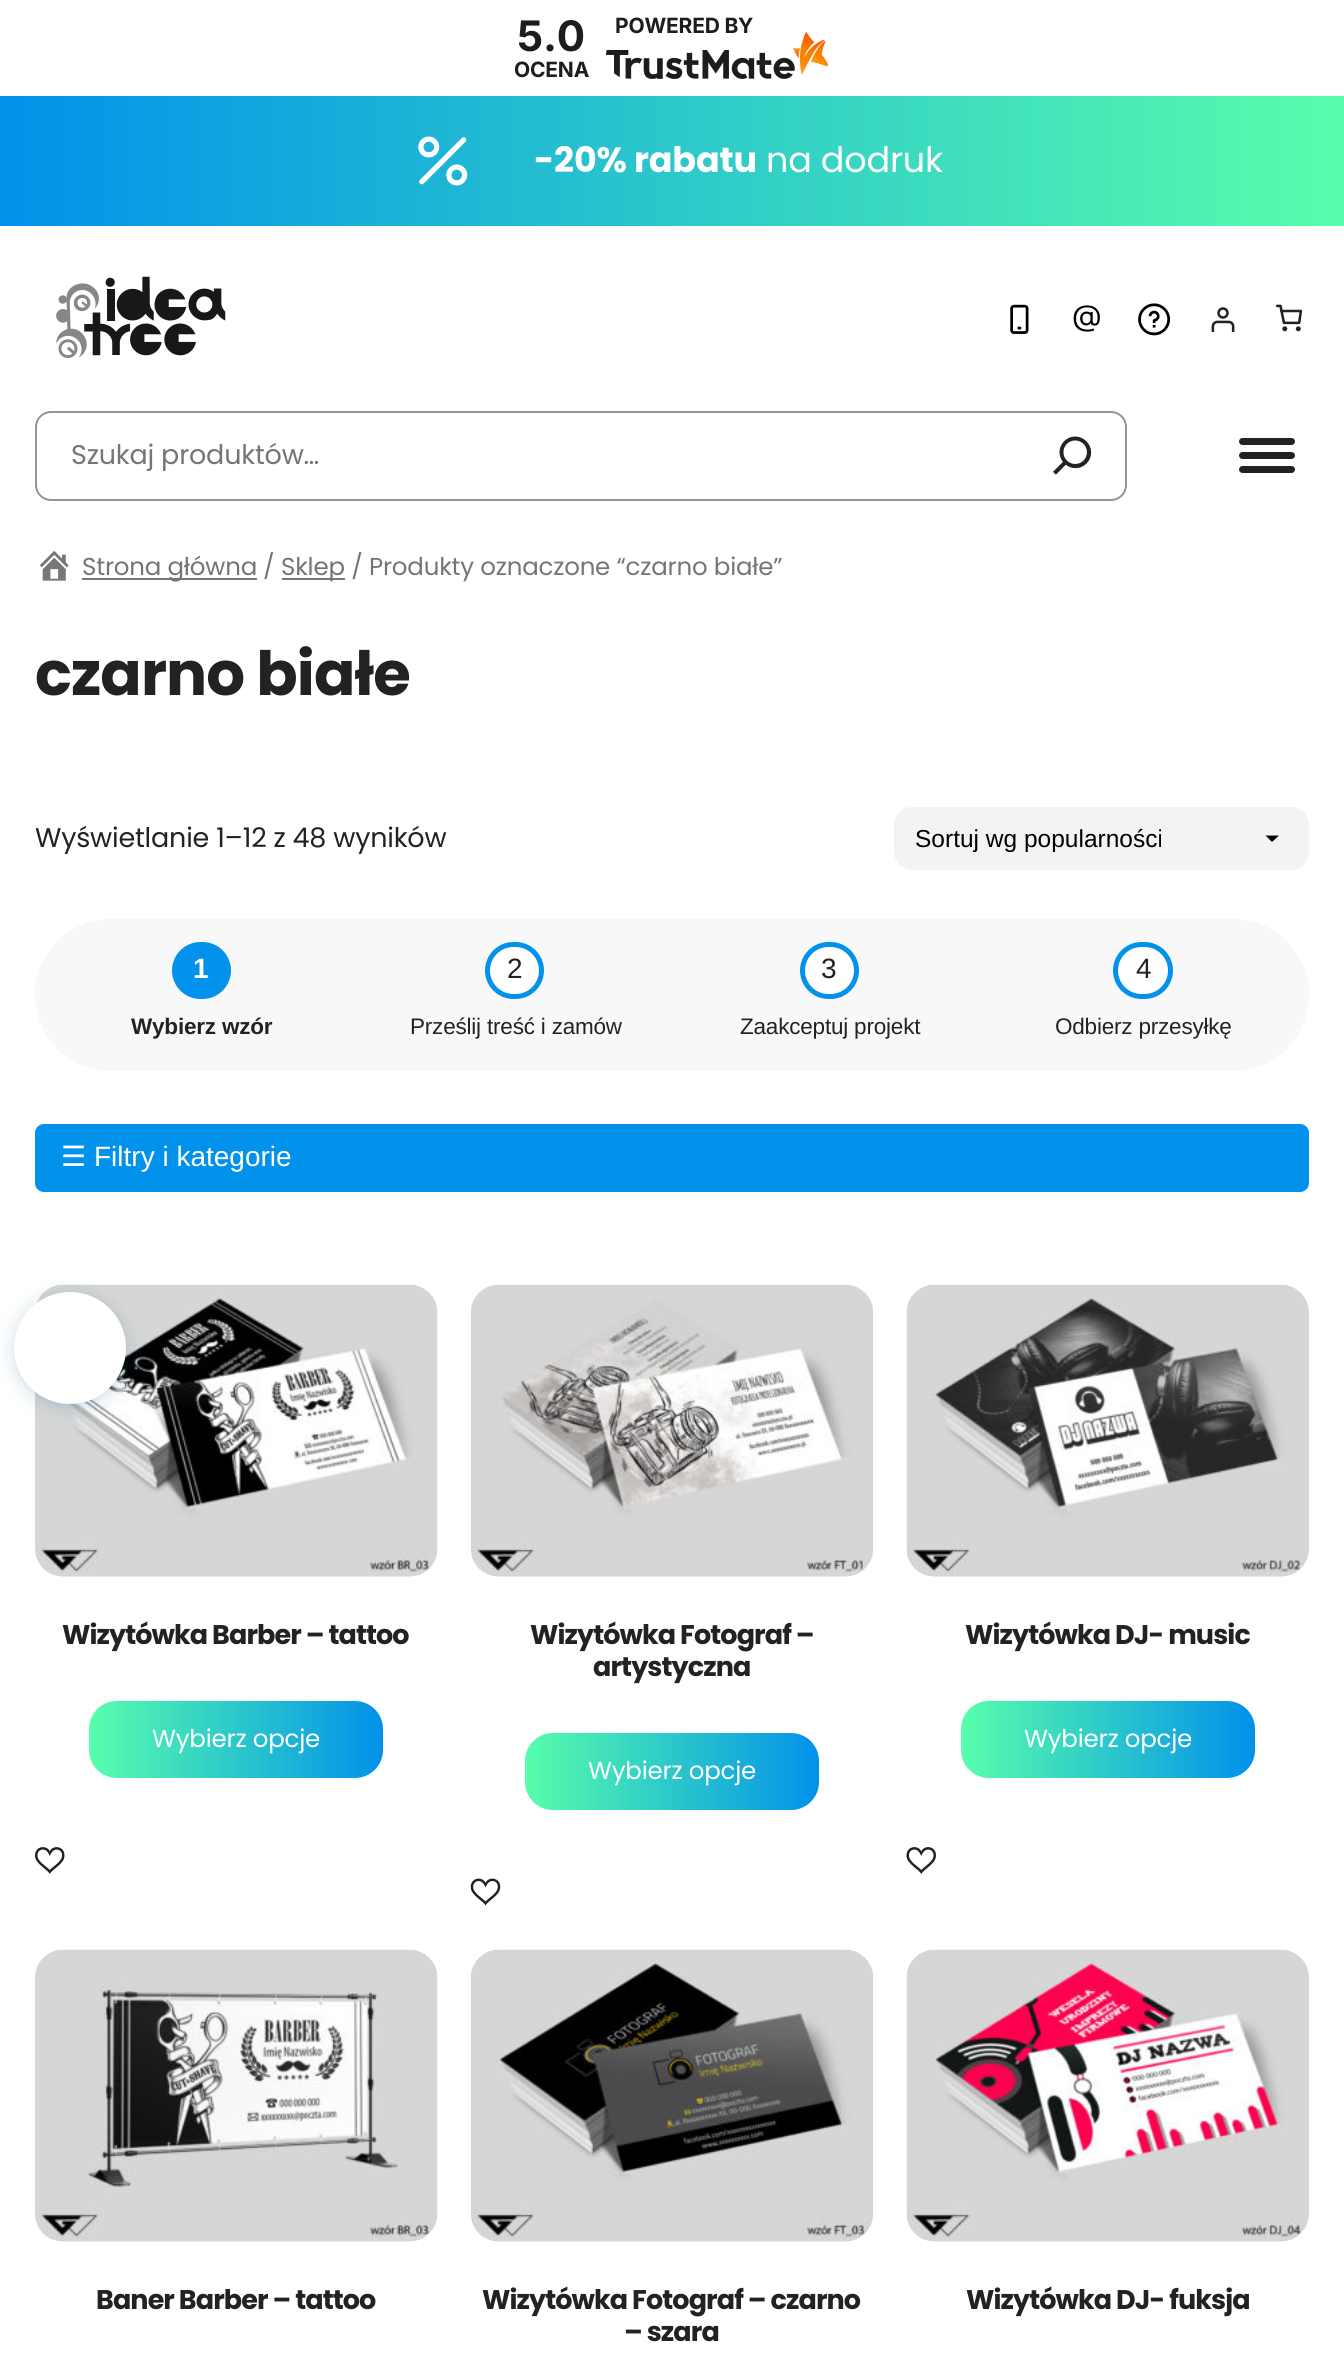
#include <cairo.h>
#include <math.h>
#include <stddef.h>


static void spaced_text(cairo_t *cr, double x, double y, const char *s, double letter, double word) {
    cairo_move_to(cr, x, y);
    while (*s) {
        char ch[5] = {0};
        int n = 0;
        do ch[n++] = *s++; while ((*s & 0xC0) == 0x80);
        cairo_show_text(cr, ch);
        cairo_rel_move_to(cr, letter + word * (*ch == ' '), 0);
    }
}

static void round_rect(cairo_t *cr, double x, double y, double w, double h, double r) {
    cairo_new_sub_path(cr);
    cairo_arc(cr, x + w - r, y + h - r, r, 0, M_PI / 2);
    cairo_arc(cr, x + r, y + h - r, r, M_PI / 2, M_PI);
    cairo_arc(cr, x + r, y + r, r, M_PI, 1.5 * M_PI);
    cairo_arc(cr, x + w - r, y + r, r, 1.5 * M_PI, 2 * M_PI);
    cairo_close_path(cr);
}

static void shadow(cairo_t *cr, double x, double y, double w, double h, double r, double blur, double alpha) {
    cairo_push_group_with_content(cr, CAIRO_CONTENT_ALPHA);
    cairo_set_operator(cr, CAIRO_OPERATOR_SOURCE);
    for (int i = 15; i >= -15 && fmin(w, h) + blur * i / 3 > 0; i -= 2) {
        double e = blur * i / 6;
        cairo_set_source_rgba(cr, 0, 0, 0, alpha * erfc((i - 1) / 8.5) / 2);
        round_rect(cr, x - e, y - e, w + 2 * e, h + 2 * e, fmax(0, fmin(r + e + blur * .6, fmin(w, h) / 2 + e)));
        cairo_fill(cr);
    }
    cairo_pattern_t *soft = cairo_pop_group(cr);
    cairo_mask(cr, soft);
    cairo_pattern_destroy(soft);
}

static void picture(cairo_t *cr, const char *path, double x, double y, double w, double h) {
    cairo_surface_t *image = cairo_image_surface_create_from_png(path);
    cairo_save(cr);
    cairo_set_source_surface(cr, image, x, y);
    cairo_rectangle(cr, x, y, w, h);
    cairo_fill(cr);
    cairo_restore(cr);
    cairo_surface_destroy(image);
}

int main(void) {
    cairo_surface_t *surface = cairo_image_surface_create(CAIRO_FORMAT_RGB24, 1344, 2358);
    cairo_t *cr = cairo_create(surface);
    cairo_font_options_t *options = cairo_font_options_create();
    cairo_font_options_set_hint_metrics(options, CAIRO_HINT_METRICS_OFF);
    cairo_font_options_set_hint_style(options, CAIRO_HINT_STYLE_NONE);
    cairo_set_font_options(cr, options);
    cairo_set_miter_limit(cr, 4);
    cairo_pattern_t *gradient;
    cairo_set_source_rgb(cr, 1, 1, 1);
    cairo_paint(cr);
    cairo_select_font_face(cr, "Inter", CAIRO_FONT_SLANT_NORMAL, CAIRO_FONT_WEIGHT_BOLD);
    cairo_set_font_size(cr, 42);
    cairo_set_source_rgb(cr, 0.114, 0.114, 0.106);
    spaced_text(cr, 517, 51, "5.0", -0.2, 0);
    cairo_set_font_size(cr, 21);
    spaced_text(cr, 514, 77, "OCENA", -0.2, 0);
    spaced_text(cr, 615, 33, "POWERED BY", -0.2, 0);
    picture(cr, "img1.png", 606, 32, 223, 47);
    gradient = cairo_pattern_create_linear(0, 161, 1344, 161);
    cairo_pattern_add_color_stop_rgba(gradient, 0, 0.008, 0.569, 0.918, 1);
    cairo_pattern_add_color_stop_rgba(gradient, 1, 0.341, 0.996, 0.671, 1);
    cairo_set_source(cr, gradient);
    cairo_pattern_destroy(gradient);
    cairo_rectangle(cr, 0, 96, 1344, 130);
    cairo_fill(cr);
    picture(cr, "img2.png", 418, 136, 50, 50);
    cairo_select_font_face(cr, "Poppins", CAIRO_FONT_SLANT_NORMAL, CAIRO_FONT_WEIGHT_BOLD);
    cairo_set_font_size(cr, 35);
    cairo_set_source_rgb(cr, 1, 1, 1);
    spaced_text(cr, 534, 172, "-20% rabatu", -0.2, 0);
    cairo_select_font_face(cr, "Poppins", CAIRO_FONT_SLANT_NORMAL, CAIRO_FONT_WEIGHT_NORMAL);
    spaced_text(cr, 766, 172, "na dodruk", -0.2, 0);
    picture(cr, "img3.png", 56, 276, 170, 82);
    picture(cr, "img4.png", 1010, 304, 19, 30);
    picture(cr, "img5.png", 1073, 305, 27, 27);
    picture(cr, "img6.png", 1138, 303, 33, 33);
    picture(cr, "img7.png", 1211, 307, 24, 26);
    picture(cr, "img8.png", 1276, 304, 27, 28);
    round_rect(cr, 36, 412, 1090, 88, 15);
    cairo_set_source_rgb(cr, 0.58, 0.58, 0.58);
    cairo_stroke(cr);
    cairo_set_font_size(cr, 27);
    cairo_set_source_rgb(cr, 0.459, 0.459, 0.459);
    spaced_text(cr, 71, 464, "Szukaj produktów…", -0.2, 0);
    picture(cr, "img9.png", 1053, 436, 39, 39);
    cairo_set_source_rgb(cr, 0.133, 0.133, 0.133);
    round_rect(cr, 1239, 438, 56, 7, 3.5);
    cairo_fill(cr);
    round_rect(cr, 1239, 452, 56, 7, 3.5);
    cairo_fill(cr);
    round_rect(cr, 1239, 466, 56, 7, 3.5);
    cairo_fill(cr);
    picture(cr, "img10.png", 39, 550, 30, 31);
    cairo_set_source_rgb(cr, 0.467, 0.467, 0.467);
    cairo_rectangle(cr, 82, 578, 175, 2);
    cairo_fill(cr);
    cairo_set_font_size(cr, 24.5);
    cairo_set_source_rgb(cr, 0.459, 0.459, 0.459);
    spaced_text(cr, 82, 575, "Strona główna", -0.2, 0);
    spaced_text(cr, 263, 575, "/", -0.2, 0);
    cairo_set_source_rgb(cr, 0.467, 0.467, 0.467);
    cairo_rectangle(cr, 282, 578, 63, 2);
    cairo_fill(cr);
    cairo_set_source_rgb(cr, 0.459, 0.459, 0.459);
    spaced_text(cr, 281, 575, "Sklep / Produkty oznaczone “czarno białe”", -0.2, 0);
    cairo_select_font_face(cr, "Poppins", CAIRO_FONT_SLANT_NORMAL, CAIRO_FONT_WEIGHT_BOLD);
    cairo_set_font_size(cr, 61);
    cairo_set_source_rgb(cr, 0.133, 0.133, 0.133);
    spaced_text(cr, 35, 695, "czarno białe", -0.9, 0);
    cairo_select_font_face(cr, "Poppins", CAIRO_FONT_SLANT_NORMAL, CAIRO_FONT_WEIGHT_NORMAL);
    cairo_set_font_size(cr, 27);
    spaced_text(cr, 35, 847, "Wyświetlanie 1–12 z 48 wyników", -0.2, 0);
    cairo_set_source_rgb(cr, 0.953, 0.953, 0.953);
    round_rect(cr, 894, 807, 415, 63, 18);
    cairo_fill(cr);
    cairo_set_source_rgb(cr, 0, 0, 0);
    cairo_new_path(cr);
    cairo_move_to(cr, 1265.5, 835.5);
    cairo_line_to(cr, 1272, 842);
    cairo_line_to(cr, 1279, 835.5);
    cairo_close_path(cr);
    cairo_fill(cr);
    cairo_save(cr);
    cairo_rectangle(cr, 915, 824, 324, 28);
    cairo_clip(cr);
    cairo_select_font_face(cr, "Liberation Sans", CAIRO_FONT_SLANT_NORMAL, CAIRO_FONT_WEIGHT_NORMAL);
    cairo_set_font_size(cr, 24.5);
    cairo_move_to(cr, 915, 847);
    cairo_show_text(cr, "Sortuj wg popularności");
    cairo_restore(cr);
    cairo_set_source_rgb(cr, 0.969, 0.969, 0.969);
    round_rect(cr, 35, 919, 1274, 152, 76);
    cairo_fill(cr);
    cairo_set_source_rgb(cr, 0.008, 0.569, 0.918);
    round_rect(cr, 174.5, 944.5, 54, 52, 26);
    cairo_fill_preserve(cr);
    cairo_set_line_width(cr, 5);
    cairo_stroke(cr);
    cairo_select_font_face(cr, "Liberation Sans", CAIRO_FONT_SLANT_NORMAL, CAIRO_FONT_WEIGHT_BOLD);
    cairo_set_font_size(cr, 28);
    cairo_set_source_rgb(cr, 1, 1, 1);
    spaced_text(cr, 193, 978, "1", -0.2, 0);
    cairo_set_font_size(cr, 22.5);
    cairo_set_source_rgb(cr, 0.133, 0.133, 0.133);
    spaced_text(cr, 131, 1034, "Wybierz wzór", -0.2, 0);
    cairo_set_source_rgb(cr, 1, 1, 1);
    round_rect(cr, 487.5, 944.5, 54, 52, 26);
    cairo_fill_preserve(cr);
    cairo_set_source_rgb(cr, 0.008, 0.569, 0.918);
    cairo_stroke(cr);
    cairo_select_font_face(cr, "Liberation Sans", CAIRO_FONT_SLANT_NORMAL, CAIRO_FONT_WEIGHT_NORMAL);
    cairo_set_font_size(cr, 28);
    cairo_set_source_rgb(cr, 0.133, 0.133, 0.133);
    spaced_text(cr, 507, 978, "2", -0.2, 0);
    cairo_set_font_size(cr, 22.5);
    spaced_text(cr, 410, 1034, "Prześlij treść i zamów", -0.2, 0);
    cairo_set_source_rgb(cr, 1, 1, 1);
    round_rect(cr, 802.5, 944.5, 54, 52, 26);
    cairo_fill_preserve(cr);
    cairo_set_source_rgb(cr, 0.008, 0.569, 0.918);
    cairo_stroke(cr);
    cairo_set_font_size(cr, 28);
    cairo_set_source_rgb(cr, 0.133, 0.133, 0.133);
    spaced_text(cr, 821, 978, "3", -0.2, 0);
    cairo_set_font_size(cr, 22.5);
    spaced_text(cr, 740, 1034, "Zaakceptuj projekt", -0.2, 0);
    cairo_set_source_rgb(cr, 1, 1, 1);
    round_rect(cr, 1115.5, 944.5, 55, 52, 26);
    cairo_fill_preserve(cr);
    cairo_set_source_rgb(cr, 0.008, 0.569, 0.918);
    cairo_stroke(cr);
    cairo_set_font_size(cr, 28);
    cairo_set_source_rgb(cr, 0.133, 0.133, 0.133);
    spaced_text(cr, 1136, 978, "4", -0.2, 0);
    cairo_set_font_size(cr, 22.5);
    spaced_text(cr, 1055, 1034, "Odbierz przesyłkę", -0.2, 0);
    cairo_set_source_rgb(cr, 0.008, 0.569, 0.918);
    round_rect(cr, 35, 1124, 1274, 68, 9);
    cairo_fill(cr);
    cairo_select_font_face(cr, "DejaVu Sans", CAIRO_FONT_SLANT_NORMAL, CAIRO_FONT_WEIGHT_NORMAL);
    cairo_set_font_size(cr, 28);
    cairo_set_source_rgb(cr, 1, 1, 1);
    cairo_move_to(cr, 61, 1166);
    cairo_show_text(cr, "☰");
    cairo_select_font_face(cr, "Liberation Sans", CAIRO_FONT_SLANT_NORMAL, CAIRO_FONT_WEIGHT_NORMAL);
    cairo_move_to(cr, 94, 1166);
    cairo_show_text(cr, "Filtry i kategorie");
    picture(cr, "img11.png", 35, 1284, 403, 293);
    cairo_select_font_face(cr, "Poppins", CAIRO_FONT_SLANT_NORMAL, CAIRO_FONT_WEIGHT_BOLD);
    cairo_set_font_size(cr, 27);
    cairo_set_source_rgb(cr, 0.133, 0.133, 0.133);
    spaced_text(cr, 62, 1644, "Wizytówka Barber – tattoo", -0.9, 0);
    gradient = cairo_pattern_create_linear(89, 1740, 383, 1740);
    cairo_pattern_add_color_stop_rgba(gradient, 0, 0.341, 0.996, 0.671, 1);
    cairo_pattern_add_color_stop_rgba(gradient, 1, 0.008, 0.569, 0.918, 1);
    cairo_set_source(cr, gradient);
    cairo_pattern_destroy(gradient);
    round_rect(cr, 89, 1701, 294, 77, 28);
    cairo_fill(cr);
    cairo_select_font_face(cr, "Poppins", CAIRO_FONT_SLANT_NORMAL, CAIRO_FONT_WEIGHT_NORMAL);
    cairo_set_font_size(cr, 24.5);
    cairo_set_source_rgb(cr, 1, 1, 1);
    spaced_text(cr, 152, 1747, "Wybierz opcje", -0.2, 0);
    picture(cr, "img12.png", 35, 1847, 30, 27);
    picture(cr, "img13.png", 471, 1284, 402, 293);
    cairo_select_font_face(cr, "Poppins", CAIRO_FONT_SLANT_NORMAL, CAIRO_FONT_WEIGHT_BOLD);
    cairo_set_font_size(cr, 27);
    cairo_set_source_rgb(cr, 0.133, 0.133, 0.133);
    spaced_text(cr, 530, 1644, "Wizytówka Fotograf –", -0.9, 0);
    spaced_text(cr, 593, 1676, "artystyczna", -0.9, 0);
    gradient = cairo_pattern_create_linear(525, 1771, 819, 1771);
    cairo_pattern_add_color_stop_rgba(gradient, 0, 0.341, 0.996, 0.671, 1);
    cairo_pattern_add_color_stop_rgba(gradient, 1, 0.008, 0.569, 0.918, 1);
    cairo_set_source(cr, gradient);
    cairo_pattern_destroy(gradient);
    round_rect(cr, 525, 1733, 294, 77, 28);
    cairo_fill(cr);
    cairo_select_font_face(cr, "Poppins", CAIRO_FONT_SLANT_NORMAL, CAIRO_FONT_WEIGHT_NORMAL);
    cairo_set_font_size(cr, 24.5);
    cairo_set_source_rgb(cr, 1, 1, 1);
    spaced_text(cr, 588, 1779, "Wybierz opcje", -0.2, 0);
    picture(cr, "img14.png", 470, 1878, 31, 28);
    picture(cr, "img15.png", 906, 1284, 403, 293);
    cairo_select_font_face(cr, "Poppins", CAIRO_FONT_SLANT_NORMAL, CAIRO_FONT_WEIGHT_BOLD);
    cairo_set_font_size(cr, 27);
    cairo_set_source_rgb(cr, 0.133, 0.133, 0.133);
    spaced_text(cr, 965, 1644, "Wizytówka DJ- music", -0.9, 0);
    gradient = cairo_pattern_create_linear(961, 1740, 1255, 1740);
    cairo_pattern_add_color_stop_rgba(gradient, 0, 0.341, 0.996, 0.671, 1);
    cairo_pattern_add_color_stop_rgba(gradient, 1, 0.008, 0.569, 0.918, 1);
    cairo_set_source(cr, gradient);
    cairo_pattern_destroy(gradient);
    round_rect(cr, 961, 1701, 294, 77, 28);
    cairo_fill(cr);
    cairo_select_font_face(cr, "Poppins", CAIRO_FONT_SLANT_NORMAL, CAIRO_FONT_WEIGHT_NORMAL);
    cairo_set_font_size(cr, 24.5);
    cairo_set_source_rgb(cr, 1, 1, 1);
    spaced_text(cr, 1024, 1747, "Wybierz opcje", -0.2, 0);
    picture(cr, "img16.png", 906, 1847, 30, 27);
    picture(cr, "img17.png", 35, 1949, 403, 293);
    cairo_select_font_face(cr, "Poppins", CAIRO_FONT_SLANT_NORMAL, CAIRO_FONT_WEIGHT_BOLD);
    cairo_set_font_size(cr, 27);
    cairo_set_source_rgb(cr, 0.133, 0.133, 0.133);
    spaced_text(cr, 96, 2309, "Baner Barber – tattoo", -0.9, 0);
    picture(cr, "img18.png", 471, 1949, 402, 293);
    spaced_text(cr, 482, 2309, "Wizytówka Fotograf – czarno", -0.9, 0);
    spaced_text(cr, 624, 2341, "– szara", -0.9, 0);
    picture(cr, "img19.png", 906, 1949, 403, 293);
    spaced_text(cr, 966, 2309, "Wizytówka DJ- fuksja", -0.9, 0);
    cairo_set_source_rgb(cr, 0.043, 0.337, 0.502);
    shadow(cr, 14, 1295, 112, 112, 56, 9, 0.2);
    cairo_set_source_rgb(cr, 1, 1, 1);
    cairo_arc(cr, 70, 1348, 56, 0, 2 * M_PI);
    cairo_fill(cr);
    cairo_surface_write_to_png(surface, "page.png");
    cairo_font_options_destroy(options);
    cairo_destroy(cr);
    cairo_surface_destroy(surface);
    return 0;
}
